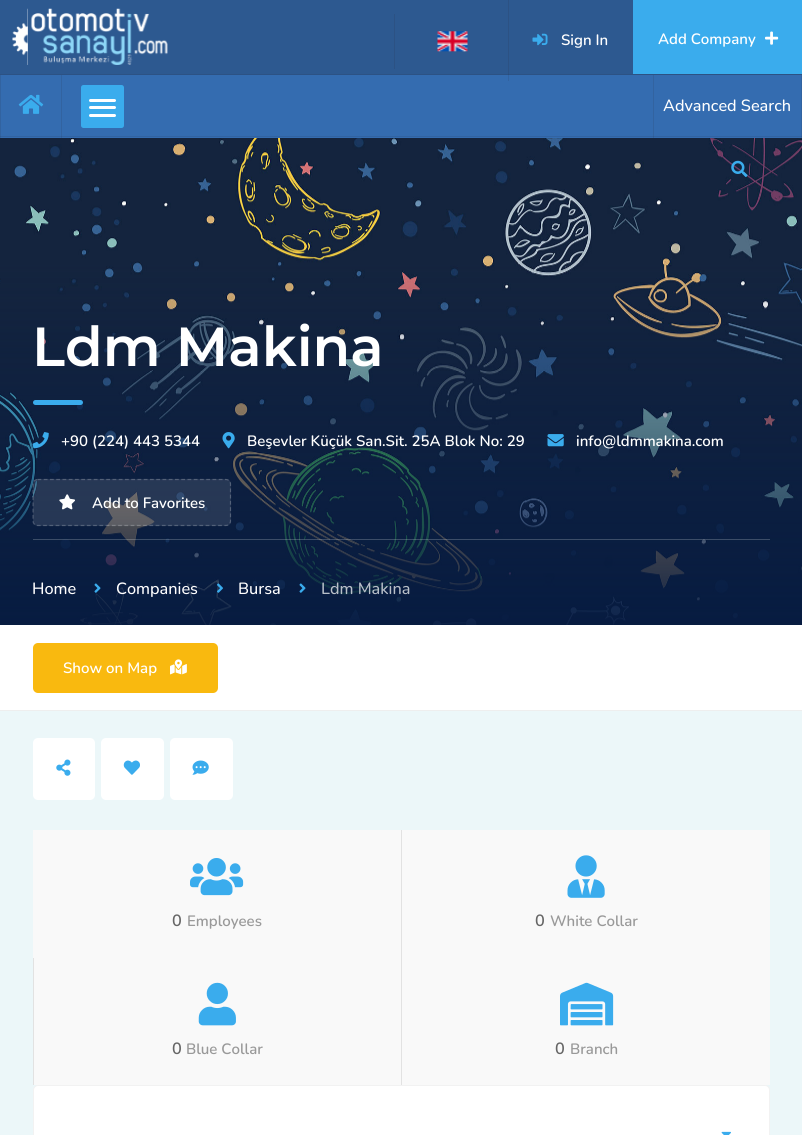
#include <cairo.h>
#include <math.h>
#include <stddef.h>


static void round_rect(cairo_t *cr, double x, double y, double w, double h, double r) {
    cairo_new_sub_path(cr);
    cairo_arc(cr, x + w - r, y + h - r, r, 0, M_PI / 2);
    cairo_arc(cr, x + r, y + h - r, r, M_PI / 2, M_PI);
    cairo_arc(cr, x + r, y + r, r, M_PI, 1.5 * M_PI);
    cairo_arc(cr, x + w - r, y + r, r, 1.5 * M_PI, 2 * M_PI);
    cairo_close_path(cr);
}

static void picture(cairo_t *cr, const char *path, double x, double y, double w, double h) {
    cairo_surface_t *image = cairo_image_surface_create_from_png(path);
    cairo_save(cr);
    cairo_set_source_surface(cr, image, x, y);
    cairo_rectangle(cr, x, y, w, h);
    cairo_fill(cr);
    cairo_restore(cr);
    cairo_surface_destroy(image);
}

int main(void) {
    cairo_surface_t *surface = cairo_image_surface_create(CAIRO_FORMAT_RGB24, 802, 1135);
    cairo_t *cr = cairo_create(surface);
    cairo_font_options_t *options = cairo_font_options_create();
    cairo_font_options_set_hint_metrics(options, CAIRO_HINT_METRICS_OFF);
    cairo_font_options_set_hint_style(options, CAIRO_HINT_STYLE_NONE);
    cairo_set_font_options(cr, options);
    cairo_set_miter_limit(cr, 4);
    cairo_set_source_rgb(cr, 1, 1, 1);
    cairo_paint(cr);
    cairo_set_source_rgb(cr, 0.204, 0.424, 0.69);
    cairo_rectangle(cr, 0, 75, 802, 63);
    cairo_fill(cr);
    cairo_set_source_rgb(cr, 0.196, 0.388, 0.631);
    cairo_rectangle(cr, 508, 75, 1, 6);
    cairo_fill(cr);
    cairo_rectangle(cr, 0, 136, 802, 1);
    cairo_fill(cr);
    cairo_set_source_rgb(cr, 0.176, 0.349, 0.565);
    cairo_rectangle(cr, 0, 0, 633, 74);
    cairo_fill(cr);
    cairo_set_source_rgb(cr, 0.173, 0.322, 0.518);
    cairo_rectangle(cr, 508, 0, 1, 75);
    cairo_fill(cr);
    cairo_rectangle(cr, 0, 74, 802, 1);
    cairo_fill(cr);
    cairo_set_source_rgb(cr, 0.169, 0.298, 0.478);
    cairo_rectangle(cr, 508, 74, 1, 1);
    cairo_fill(cr);
    picture(cr, "img1.png", 12, 8, 156, 57);
    cairo_set_source_rgb(cr, 0.173, 0.322, 0.518);
    cairo_rectangle(cr, 394, 14, 1, 55);
    cairo_fill(cr);
    picture(cr, "img2.png", 437, 31, 31, 21);
    picture(cr, "img3.png", 532, 33, 16, 13);
    cairo_select_font_face(cr, "Nunito SemiBold", CAIRO_FONT_SLANT_NORMAL, CAIRO_FONT_WEIGHT_NORMAL);
    cairo_set_font_size(cr, 15);
    cairo_set_source_rgb(cr, 1, 1, 1);
    cairo_move_to(cr, 561, 45);
    cairo_show_text(cr, "Sign In");
    cairo_set_source_rgb(cr, 0.227, 0.675, 0.929);
    cairo_rectangle(cr, 633, 0, 169, 74);
    cairo_fill(cr);
    cairo_set_source_rgb(cr, 1, 1, 1);
    cairo_move_to(cr, 658, 44);
    cairo_show_text(cr, "Add Company");
    picture(cr, "img4.png", 765, 31, 14, 14);
    cairo_set_source_rgba(cr, 0.133, 0.133, 0.188, 0.12);
    cairo_rectangle(cr, 61, 75, 1, 63);
    cairo_fill(cr);
    cairo_rectangle(cr, 0, 75, 1, 63);
    cairo_fill(cr);
    picture(cr, "img5.png", 18, 94, 26, 20);
    cairo_set_source_rgb(cr, 0.227, 0.675, 0.929);
    round_rect(cr, 81, 85, 43, 43, 2.5);
    cairo_fill(cr);
    cairo_set_source_rgb(cr, 1, 1, 1);
    round_rect(cr, 89, 99, 27, 3, 1.5);
    cairo_fill(cr);
    round_rect(cr, 89, 106, 27, 3, 1.5);
    cairo_fill(cr);
    round_rect(cr, 89, 114, 27, 3, 1.5);
    cairo_fill(cr);
    cairo_set_source_rgba(cr, 0.133, 0.133, 0.188, 0.12);
    cairo_rectangle(cr, 801, 75, 1, 63);
    cairo_fill(cr);
    cairo_rectangle(cr, 653, 75, 1, 63);
    cairo_fill(cr);
    cairo_select_font_face(cr, "Nunito Medium", CAIRO_FONT_SLANT_NORMAL, CAIRO_FONT_WEIGHT_NORMAL);
    cairo_set_font_size(cr, 16.25);
    cairo_set_source_rgb(cr, 1, 1, 1);
    cairo_move_to(cr, 663, 111);
    cairo_show_text(cr, "Advanced Search");
    picture(cr, "img7.png", 0, 138, 802, 487);
    picture(cr, "img6.png", 731, 160, 17, 17);
    cairo_select_font_face(cr, "Montserrat SemiBold", CAIRO_FONT_SLANT_NORMAL, CAIRO_FONT_WEIGHT_NORMAL);
    cairo_set_font_size(cr, 55);
    cairo_move_to(cr, 32, 366);
    cairo_show_text(cr, "Ldm Makina");
    cairo_set_source_rgb(cr, 0.227, 0.675, 0.929);
    round_rect(cr, 33, 400, 50, 5, 2.5);
    cairo_fill(cr);
    picture(cr, "img8.png", 32, 432, 17, 17);
    cairo_select_font_face(cr, "Nunito SemiBold", CAIRO_FONT_SLANT_NORMAL, CAIRO_FONT_WEIGHT_NORMAL);
    cairo_set_font_size(cr, 15);
    cairo_set_source_rgb(cr, 1, 1, 1);
    cairo_move_to(cr, 61, 446);
    cairo_show_text(cr, "+90 (224) 443 5344");
    picture(cr, "img9.png", 222, 432, 13, 17);
    cairo_move_to(cr, 247, 446);
    cairo_show_text(cr, "Beşevler Küçük San.Sit. 25A Blok No: 29");
    picture(cr, "img10.png", 547, 434, 17, 13);
    cairo_move_to(cr, 576, 446);
    cairo_show_text(cr, "info@ldmmakina.com");
    cairo_set_source_rgba(cr, 1, 1, 1, 0.11);
    round_rect(cr, 33, 479, 198, 47, 5);
    cairo_fill(cr);
    cairo_new_path(cr);
    cairo_move_to(cr, 37.5, 479.5);
    cairo_line_to(cr, 226, 479.5);
    cairo_curve_to(cr, 228.5, 479.5, 230.5, 481.5, 230.5, 484);
    cairo_line_to(cr, 230.5, 521);
    cairo_curve_to(cr, 230.5, 523.5, 228.5, 525.5, 226, 525.5);
    cairo_line_to(cr, 37.5, 525.5);
    cairo_curve_to(cr, 35, 525.5, 33, 523.5, 33, 521);
    cairo_line_to(cr, 33, 484);
    cairo_curve_to(cr, 33, 481.5, 35, 479.5, 37.5, 479.5);
    cairo_close_path(cr);
    cairo_set_source_rgba(cr, 1, 1, 1, 0.21);
    cairo_set_line_width(cr, 1.2);
    cairo_set_dash(cr, (double[]){3.75, 2.5}, 2, 0);
    cairo_stroke(cr);
    picture(cr, "img11.png", 59, 494, 16, 16);
    cairo_set_source_rgb(cr, 1, 1, 1);
    cairo_move_to(cr, 92, 508);
    cairo_show_text(cr, "Add to Favorites");
    cairo_set_source_rgba(cr, 1, 1, 1, 0.21);
    cairo_rectangle(cr, 33, 539, 737, 1);
    cairo_fill(cr);
    cairo_select_font_face(cr, "Nunito Medium", CAIRO_FONT_SLANT_NORMAL, CAIRO_FONT_WEIGHT_NORMAL);
    cairo_set_font_size(cr, 16.25);
    cairo_set_source_rgb(cr, 1, 1, 1);
    cairo_move_to(cr, 32, 594);
    cairo_show_text(cr, "Home");
    picture(cr, "img12.png", 94, 583, 7, 10);
    cairo_move_to(cr, 116, 594);
    cairo_show_text(cr, "Companies");
    picture(cr, "img13.png", 217, 583, 6, 10);
    cairo_move_to(cr, 238, 594);
    cairo_show_text(cr, "Bursa");
    picture(cr, "img14.png", 299, 583, 7, 10);
    cairo_set_source_rgb(cr, 0.722, 0.749, 0.784);
    cairo_move_to(cr, 321, 594);
    cairo_show_text(cr, "Ldm Makina");
    cairo_set_source_rgb(cr, 0.925, 0.965, 0.973);
    cairo_rectangle(cr, 0, 711, 802, 424);
    cairo_fill(cr);
    cairo_set_source_rgb(cr, 0.933, 0.933, 0.933);
    cairo_rectangle(cr, 0, 710, 802, 1);
    cairo_fill(cr);
    cairo_set_source_rgb(cr, 0.976, 0.725, 0.059);
    round_rect(cr, 33, 643, 185, 50, 5);
    cairo_fill(cr);
    cairo_select_font_face(cr, "Nunito SemiBold", CAIRO_FONT_SLANT_NORMAL, CAIRO_FONT_WEIGHT_NORMAL);
    cairo_set_font_size(cr, 15);
    cairo_set_source_rgb(cr, 1, 1, 1);
    cairo_move_to(cr, 63, 673);
    cairo_show_text(cr, "Show on Map");
    picture(cr, "img15.png", 170, 659, 17, 16);
    round_rect(cr, 33, 738, 62, 62, 5);
    cairo_fill(cr);
    picture(cr, "img16.png", 56, 759, 15, 17);
    round_rect(cr, 101, 738, 63, 62, 5);
    cairo_fill(cr);
    picture(cr, "img17.png", 123, 760, 17, 15);
    round_rect(cr, 170, 738, 63, 62, 5);
    cairo_fill(cr);
    picture(cr, "img18.png", 192, 760, 17, 15);
    cairo_set_source_rgb(cr, 0.976, 0.976, 0.976);
    cairo_rectangle(cr, 33, 830, 368, 128);
    cairo_fill(cr);
    picture(cr, "img19.png", 190, 858, 54, 38);
    cairo_set_font_size(cr, 16.25);
    cairo_set_source_rgb(cr, 0.4, 0.4, 0.4);
    cairo_move_to(cr, 172, 926);
    cairo_show_text(cr, "0");
    cairo_set_font_size(cr, 15);
    cairo_set_source_rgb(cr, 0.6, 0.6, 0.6);
    cairo_move_to(cr, 187, 926);
    cairo_show_text(cr, "Employees");
    cairo_set_source_rgb(cr, 0.976, 0.976, 0.976);
    cairo_rectangle(cr, 402, 830, 368, 255);
    cairo_fill(cr);
    cairo_set_source_rgb(cr, 0.886, 0.886, 0.886);
    cairo_rectangle(cr, 401, 830, 1, 255);
    cairo_fill(cr);
    picture(cr, "img20.png", 567, 855, 38, 43);
    cairo_set_font_size(cr, 16.25);
    cairo_set_source_rgb(cr, 0.4, 0.4, 0.4);
    cairo_move_to(cr, 535, 926);
    cairo_show_text(cr, "0");
    cairo_set_font_size(cr, 15);
    cairo_set_source_rgb(cr, 0.6, 0.6, 0.6);
    cairo_move_to(cr, 550, 926);
    cairo_show_text(cr, "White Collar");
    cairo_set_source_rgb(cr, 0.976, 0.976, 0.976);
    cairo_rectangle(cr, 34, 958, 367, 127);
    cairo_fill(cr);
    cairo_set_source_rgb(cr, 0.886, 0.886, 0.886);
    cairo_rectangle(cr, 33, 958, 1, 127);
    cairo_fill(cr);
    picture(cr, "img21.png", 198, 982, 38, 44);
    cairo_set_font_size(cr, 16.25);
    cairo_set_source_rgb(cr, 0.4, 0.4, 0.4);
    cairo_move_to(cr, 172, 1054);
    cairo_show_text(cr, "0");
    cairo_set_font_size(cr, 15);
    cairo_set_source_rgb(cr, 0.6, 0.6, 0.6);
    cairo_move_to(cr, 186, 1054);
    cairo_show_text(cr, "Blue Collar");
    picture(cr, "img22.png", 560, 982, 54, 44);
    cairo_set_font_size(cr, 16.25);
    cairo_set_source_rgb(cr, 0.4, 0.4, 0.4);
    cairo_move_to(cr, 555, 1054);
    cairo_show_text(cr, "0");
    cairo_set_font_size(cr, 15);
    cairo_set_source_rgb(cr, 0.6, 0.6, 0.6);
    cairo_move_to(cr, 570, 1054);
    cairo_show_text(cr, "Branch");
    cairo_set_source_rgb(cr, 1, 1, 1);
    round_rect(cr, 33.5, 1085.5, 736, 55, 4.5);
    cairo_fill_preserve(cr);
    cairo_set_source_rgb(cr, 0.949, 0.949, 0.949);
    cairo_set_line_width(cr, 1);
    cairo_set_dash(cr, NULL, 0, 0);
    cairo_stroke(cr);
    picture(cr, "img23.png", 721, 1131, 10, 4);
    cairo_surface_write_to_png(surface, "page.png");
    cairo_font_options_destroy(options);
    cairo_destroy(cr);
    cairo_surface_destroy(surface);
    return 0;
}
